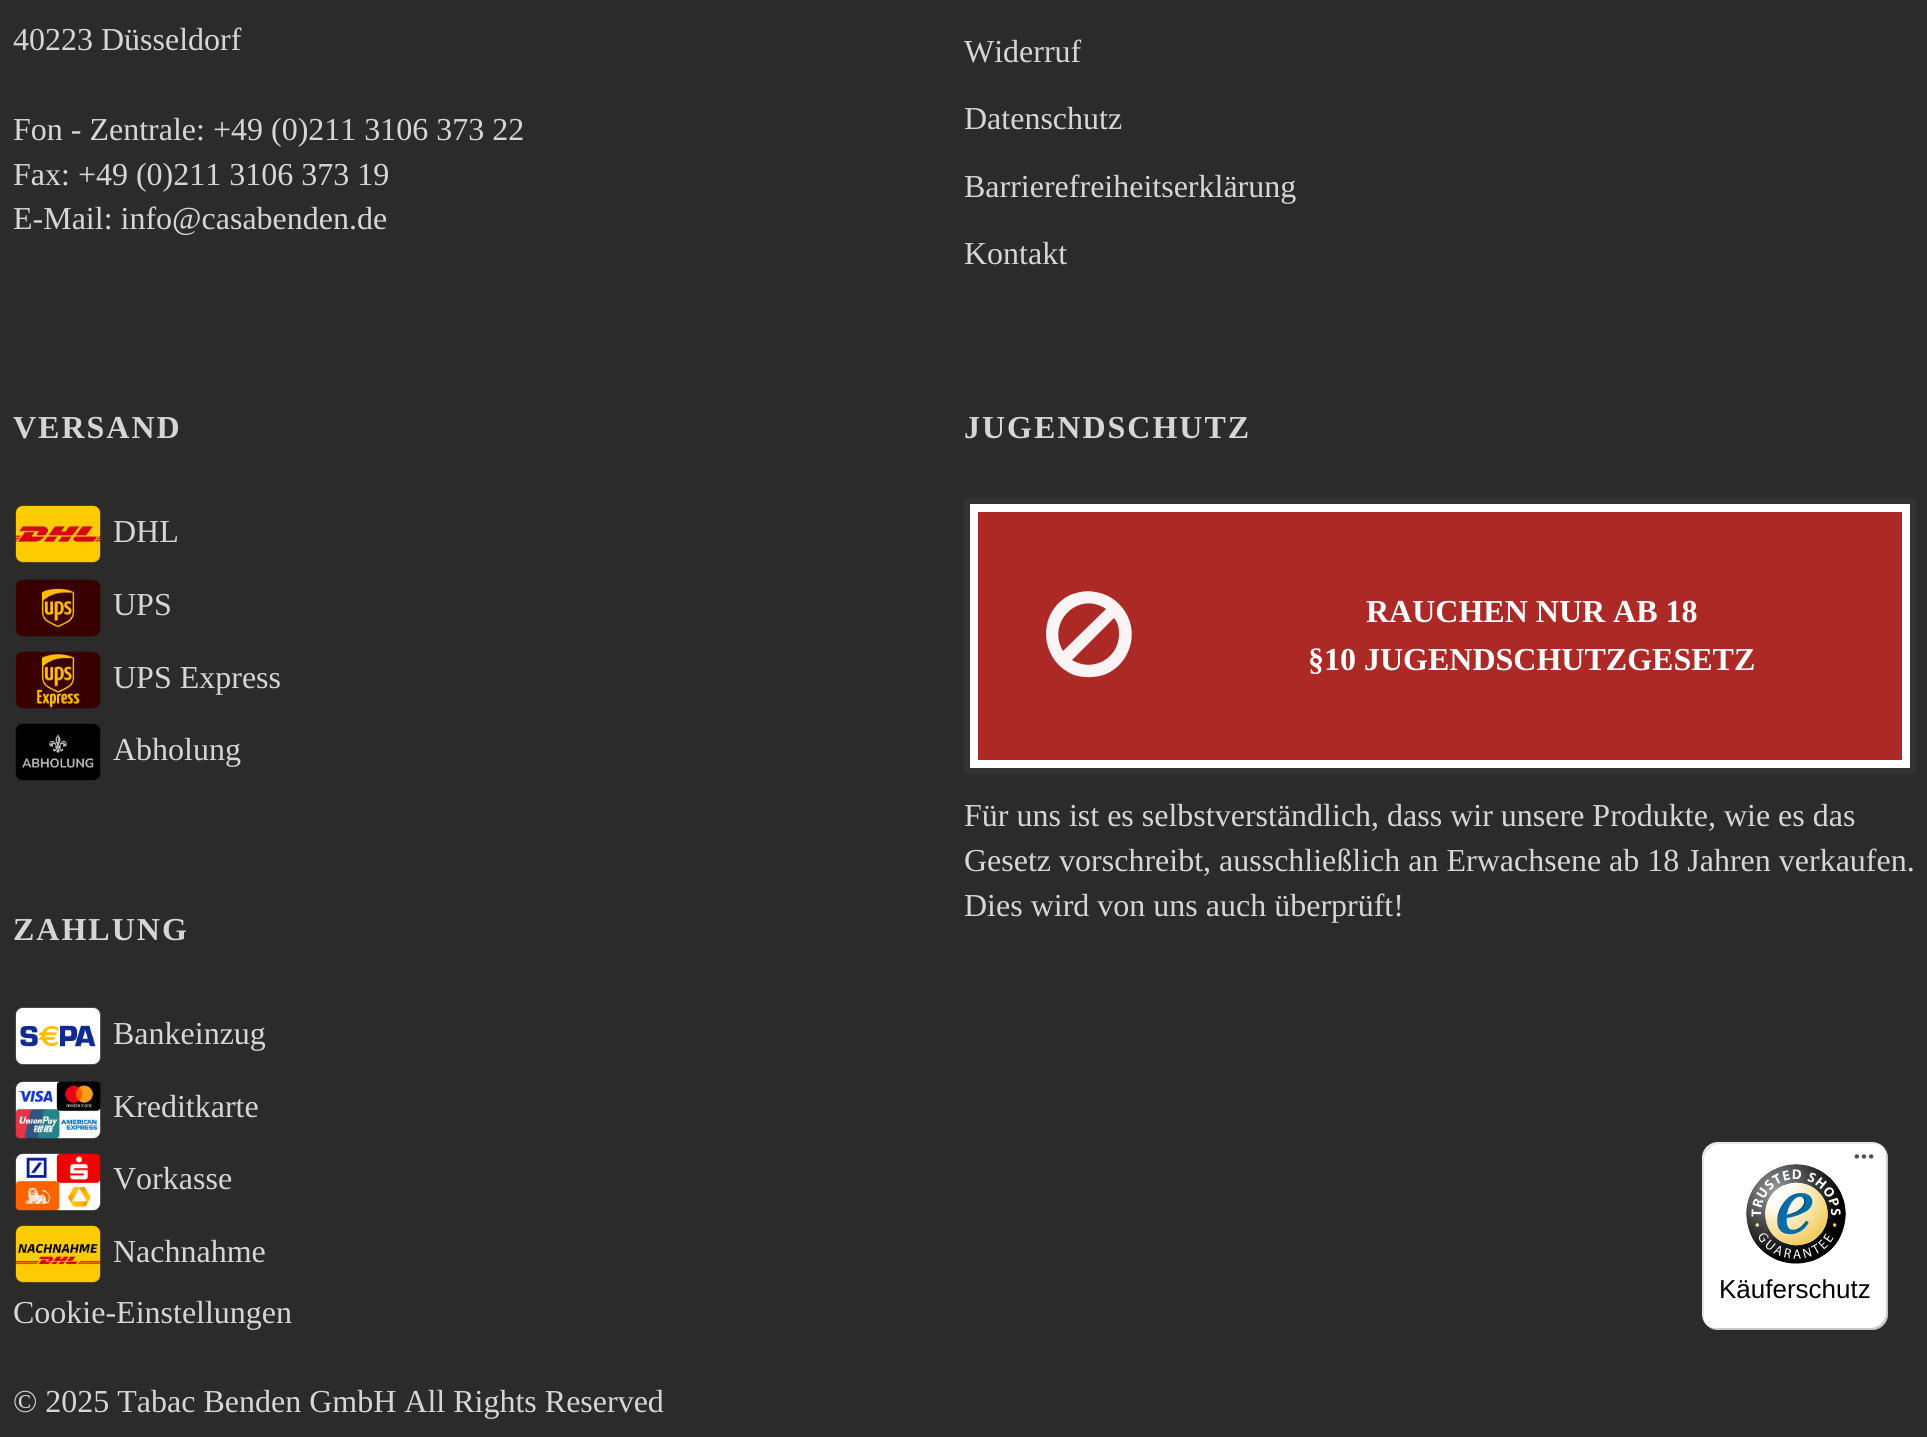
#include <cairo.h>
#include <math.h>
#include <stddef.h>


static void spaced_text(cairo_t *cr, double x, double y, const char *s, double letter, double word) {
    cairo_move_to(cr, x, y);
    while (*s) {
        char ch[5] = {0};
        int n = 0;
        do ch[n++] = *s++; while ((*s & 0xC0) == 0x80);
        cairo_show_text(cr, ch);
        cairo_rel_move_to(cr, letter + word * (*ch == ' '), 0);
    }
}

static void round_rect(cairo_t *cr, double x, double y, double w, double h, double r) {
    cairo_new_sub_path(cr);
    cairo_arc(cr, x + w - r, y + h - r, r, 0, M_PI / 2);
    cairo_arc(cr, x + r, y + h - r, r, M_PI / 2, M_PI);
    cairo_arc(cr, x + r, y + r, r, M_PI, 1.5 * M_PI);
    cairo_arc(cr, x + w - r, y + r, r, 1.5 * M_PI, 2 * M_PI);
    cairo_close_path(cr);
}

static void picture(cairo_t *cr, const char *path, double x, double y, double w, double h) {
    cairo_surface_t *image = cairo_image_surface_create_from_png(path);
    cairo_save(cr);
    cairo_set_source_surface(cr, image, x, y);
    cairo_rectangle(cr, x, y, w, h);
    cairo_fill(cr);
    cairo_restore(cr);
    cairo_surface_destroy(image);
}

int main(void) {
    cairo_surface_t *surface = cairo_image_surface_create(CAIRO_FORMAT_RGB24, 1927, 1437);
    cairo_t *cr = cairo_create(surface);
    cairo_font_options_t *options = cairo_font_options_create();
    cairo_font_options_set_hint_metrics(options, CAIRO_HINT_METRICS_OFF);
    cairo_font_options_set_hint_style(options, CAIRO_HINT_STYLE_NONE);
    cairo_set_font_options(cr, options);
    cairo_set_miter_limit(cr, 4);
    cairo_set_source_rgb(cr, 0.169, 0.169, 0.169);
    cairo_paint(cr);
    cairo_select_font_face(cr, "Liberation Serif", CAIRO_FONT_SLANT_NORMAL, CAIRO_FONT_WEIGHT_NORMAL);
    cairo_set_font_size(cr, 32);
    cairo_set_source_rgb(cr, 0.839, 0.839, 0.839);
    cairo_move_to(cr, 13, 50);
    cairo_show_text(cr, "40223 Düsseldorf");
    cairo_move_to(cr, 13, 140);
    cairo_show_text(cr, "Fon - Zentrale: +49 (0)211 3106 373 22");
    cairo_move_to(cr, 13, 185);
    cairo_show_text(cr, "Fax: +49 (0)211 3106 373 19");
    cairo_move_to(cr, 13, 229);
    cairo_show_text(cr, "E-Mail: info@casabenden.de");
    cairo_move_to(cr, 964, 62);
    cairo_show_text(cr, "Widerruf");
    cairo_move_to(cr, 964, 129);
    cairo_show_text(cr, "Datenschutz");
    cairo_move_to(cr, 964, 197);
    cairo_show_text(cr, "Barrierefreiheitserklärung");
    cairo_move_to(cr, 964, 264);
    cairo_show_text(cr, "Kontakt");
    cairo_select_font_face(cr, "Liberation Serif", CAIRO_FONT_SLANT_NORMAL, CAIRO_FONT_WEIGHT_BOLD);
    spaced_text(cr, 13, 438, "VERSAND", 2, 0);
    picture(cr, "img1.png", 15, 505, 86, 58);
    cairo_select_font_face(cr, "Liberation Serif", CAIRO_FONT_SLANT_NORMAL, CAIRO_FONT_WEIGHT_NORMAL);
    cairo_move_to(cr, 113, 542);
    cairo_show_text(cr, "DHL");
    picture(cr, "img2.png", 15, 579, 86, 58);
    cairo_move_to(cr, 113, 615);
    cairo_show_text(cr, "UPS");
    picture(cr, "img3.png", 15, 651, 86, 58);
    cairo_move_to(cr, 113, 688);
    cairo_show_text(cr, "UPS Express");
    picture(cr, "img4.png", 15, 723, 86, 58);
    cairo_move_to(cr, 113, 760);
    cairo_show_text(cr, "Abholung");
    cairo_select_font_face(cr, "Liberation Serif", CAIRO_FONT_SLANT_NORMAL, CAIRO_FONT_WEIGHT_BOLD);
    spaced_text(cr, 13, 940, "ZAHLUNG", 2, 0);
    picture(cr, "img5.png", 15, 1007, 86, 58);
    cairo_select_font_face(cr, "Liberation Serif", CAIRO_FONT_SLANT_NORMAL, CAIRO_FONT_WEIGHT_NORMAL);
    cairo_move_to(cr, 113, 1044);
    cairo_show_text(cr, "Bankeinzug");
    picture(cr, "img6.png", 15, 1081, 86, 58);
    cairo_move_to(cr, 113, 1117);
    cairo_show_text(cr, "Kreditkarte");
    picture(cr, "img7.png", 15, 1153, 86, 58);
    cairo_move_to(cr, 113, 1189);
    cairo_show_text(cr, "Vorkasse");
    picture(cr, "img8.png", 15, 1225, 86, 58);
    cairo_move_to(cr, 113, 1262);
    cairo_show_text(cr, "Nachnahme");
    cairo_select_font_face(cr, "Liberation Serif", CAIRO_FONT_SLANT_NORMAL, CAIRO_FONT_WEIGHT_BOLD);
    spaced_text(cr, 964, 438, "JUGENDSCHUTZ", 2, 0);
    cairo_set_source_rgb(cr, 1, 1, 1);
    cairo_rectangle(cr, 967, 501, 946, 270);
    cairo_fill_preserve(cr);
    cairo_set_source_rgb(cr, 0.2, 0.2, 0.2);
    cairo_set_line_width(cr, 6);
    cairo_stroke(cr);
    cairo_set_source_rgb(cr, 0.675, 0.161, 0.145);
    cairo_rectangle(cr, 978, 512, 924, 248);
    cairo_fill(cr);
    cairo_set_source_rgb(cr, 0.984, 0.957, 0.957);
    cairo_new_path(cr);
    cairo_move_to(cr, 1119, 634);
    cairo_curve_to(cr, 1119, 628, 1118, 623, 1114, 618);
    cairo_line_to(cr, 1072, 660);
    cairo_curve_to(cr, 1093, 673, 1119, 658, 1119, 634);
    cairo_close_path(cr);
    cairo_move_to(cr, 1063, 651);
    cairo_line_to(cr, 1106, 609);
    cairo_curve_to(cr, 1078, 590, 1046, 623, 1063, 651);
    cairo_close_path(cr);
    cairo_move_to(cr, 1128, 617);
    cairo_curve_to(cr, 1138, 639, 1127, 665, 1106, 674);
    cairo_curve_to(cr, 1096, 678, 1084, 678, 1074, 675);
    cairo_curve_to(cr, 1039, 661, 1036, 612, 1070, 595);
    cairo_curve_to(cr, 1078, 592, 1087, 590, 1095, 592);
    cairo_curve_to(cr, 1110, 594, 1122, 604, 1128, 617);
    cairo_close_path(cr);
    cairo_fill(cr);
    cairo_set_source_rgb(cr, 1, 1, 1);
    cairo_move_to(cr, 1366, 622);
    cairo_show_text(cr, "RAUCHEN NUR AB 18");
    cairo_move_to(cr, 1308, 670);
    cairo_show_text(cr, "§10 JUGENDSCHUTZGESETZ");
    cairo_select_font_face(cr, "Liberation Serif", CAIRO_FONT_SLANT_NORMAL, CAIRO_FONT_WEIGHT_NORMAL);
    cairo_set_source_rgb(cr, 0.839, 0.839, 0.839);
    cairo_move_to(cr, 964, 826);
    cairo_show_text(cr, "Für uns ist es selbstverständlich, dass wir unsere Produkte, wie es das");
    cairo_move_to(cr, 964, 871);
    cairo_show_text(cr, "Gesetz vorschreibt, ausschließlich an Erwachsene ab 18 Jahren verkaufen.");
    cairo_move_to(cr, 964, 916);
    cairo_show_text(cr, "Dies wird von uns auch überprüft!");
    cairo_move_to(cr, 13, 1323);
    cairo_show_text(cr, "Cookie-Einstellungen");
    cairo_move_to(cr, 13, 1412);
    cairo_show_text(cr, "© 2025 Tabac Benden GmbH All Rights Reserved");
    cairo_set_source_rgb(cr, 1, 1, 1);
    round_rect(cr, 1702, 1142, 186, 188, 16);
    cairo_fill(cr);
    cairo_set_source_rgba(cr, 0, 0, 0, 0.1);
    cairo_new_path(cr);
    cairo_move_to(cr, 1720, 1144);
    cairo_line_to(cr, 1874, 1144);
    cairo_curve_to(cr, 1878, 1144, 1881, 1145, 1884, 1147);
    cairo_curve_to(cr, 1881, 1144, 1877, 1142, 1872, 1142);
    cairo_line_to(cr, 1718, 1142);
    cairo_curve_to(cr, 1709, 1142, 1702, 1149, 1702, 1158);
    cairo_line_to(cr, 1702, 1314);
    cairo_curve_to(cr, 1702, 1319, 1704, 1323, 1707, 1326);
    cairo_curve_to(cr, 1705, 1323, 1704, 1320, 1704, 1316);
    cairo_line_to(cr, 1704, 1160);
    cairo_curve_to(cr, 1704, 1151, 1711, 1144, 1720, 1144);
    cairo_close_path(cr);
    cairo_fill(cr);
    cairo_set_source_rgba(cr, 0, 0, 0, 0.2);
    cairo_new_path(cr);
    cairo_move_to(cr, 1706, 1325);
    cairo_curve_to(cr, 1709, 1328, 1713, 1330, 1718, 1330);
    cairo_line_to(cr, 1872, 1330);
    cairo_curve_to(cr, 1881, 1330, 1888, 1323, 1888, 1314);
    cairo_line_to(cr, 1888, 1158);
    cairo_curve_to(cr, 1888, 1153, 1886, 1149, 1883, 1146);
    cairo_curve_to(cr, 1885, 1149, 1886, 1152, 1886, 1156);
    cairo_line_to(cr, 1886, 1312);
    cairo_curve_to(cr, 1886, 1321, 1879, 1328, 1870, 1328);
    cairo_line_to(cr, 1716, 1328);
    cairo_curve_to(cr, 1712, 1328, 1709, 1327, 1706, 1325);
    cairo_close_path(cr);
    cairo_fill(cr);
    cairo_set_source_rgba(cr, 0.196, 0.196, 0.196, 0.2);
    cairo_new_path(cr);
    cairo_move_to(cr, 1707, 1325);
    cairo_curve_to(cr, 1710, 1328, 1714, 1330, 1718, 1330);
    cairo_line_to(cr, 1872, 1330);
    cairo_curve_to(cr, 1881, 1330, 1888, 1323, 1888, 1314);
    cairo_line_to(cr, 1888, 1158);
    cairo_curve_to(cr, 1888, 1154, 1886, 1150, 1883, 1147);
    cairo_curve_to(cr, 1886, 1150, 1887, 1153, 1887, 1157);
    cairo_line_to(cr, 1887, 1313);
    cairo_curve_to(cr, 1887, 1322, 1880, 1329, 1871, 1329);
    cairo_line_to(cr, 1717, 1329);
    cairo_curve_to(cr, 1713, 1329, 1710, 1328, 1707, 1325);
    cairo_close_path(cr);
    cairo_fill(cr);
    cairo_set_source_rgba(cr, 1, 1, 1, 0.3);
    cairo_new_path(cr);
    cairo_move_to(cr, 1707, 1325);
    cairo_curve_to(cr, 1710, 1328, 1714, 1330, 1718, 1330);
    cairo_line_to(cr, 1872, 1330);
    cairo_curve_to(cr, 1881, 1330, 1888, 1323, 1888, 1314);
    cairo_line_to(cr, 1888, 1158);
    cairo_curve_to(cr, 1888, 1154, 1886, 1150, 1883, 1147);
    cairo_curve_to(cr, 1886, 1150, 1887, 1153, 1887, 1157);
    cairo_line_to(cr, 1887, 1313);
    cairo_curve_to(cr, 1887, 1322, 1880, 1329, 1871, 1329);
    cairo_line_to(cr, 1717, 1329);
    cairo_curve_to(cr, 1713, 1329, 1710, 1328, 1707, 1325);
    cairo_close_path(cr);
    cairo_fill(cr);
    picture(cr, "img9.png", 1854, 1154, 20, 5);
    picture(cr, "img10.png", 1746, 1164, 100, 100);
    cairo_select_font_face(cr, "Liberation Sans", CAIRO_FONT_SLANT_NORMAL, CAIRO_FONT_WEIGHT_NORMAL);
    cairo_set_font_size(cr, 26);
    cairo_set_source_rgb(cr, 0, 0, 0);
    cairo_move_to(cr, 1719, 1298);
    cairo_show_text(cr, "Käuferschutz");
    cairo_surface_write_to_png(surface, "page.png");
    cairo_font_options_destroy(options);
    cairo_destroy(cr);
    cairo_surface_destroy(surface);
    return 0;
}
